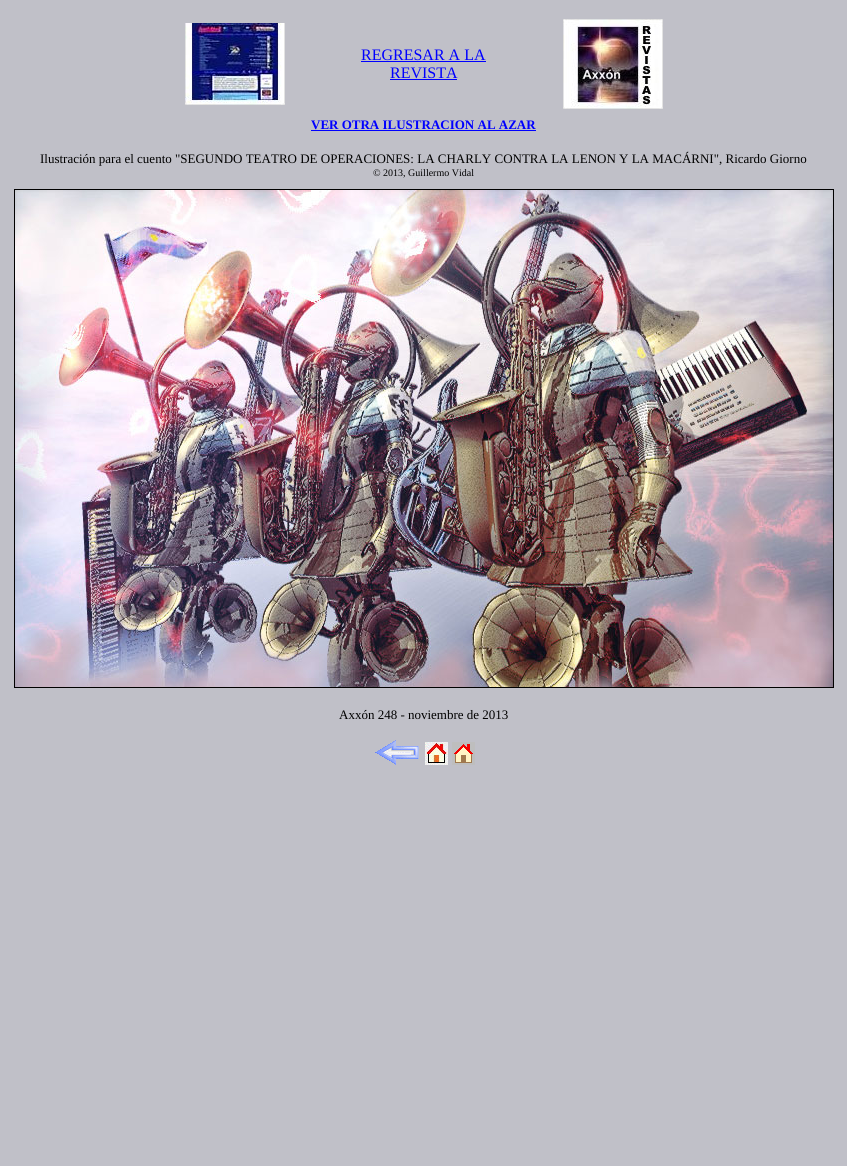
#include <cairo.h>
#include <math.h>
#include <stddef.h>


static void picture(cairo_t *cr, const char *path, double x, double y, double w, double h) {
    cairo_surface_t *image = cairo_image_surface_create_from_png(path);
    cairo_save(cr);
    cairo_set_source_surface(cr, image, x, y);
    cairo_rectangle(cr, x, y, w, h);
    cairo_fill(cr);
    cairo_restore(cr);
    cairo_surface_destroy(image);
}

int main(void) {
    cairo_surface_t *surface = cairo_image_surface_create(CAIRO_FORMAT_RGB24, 847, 1166);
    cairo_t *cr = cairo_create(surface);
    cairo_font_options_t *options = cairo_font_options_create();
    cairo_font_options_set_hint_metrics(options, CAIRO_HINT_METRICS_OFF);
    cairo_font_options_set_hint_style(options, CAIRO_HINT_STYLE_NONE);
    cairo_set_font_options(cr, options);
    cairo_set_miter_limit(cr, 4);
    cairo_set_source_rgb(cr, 0.753, 0.753, 0.784);
    cairo_paint(cr);
    picture(cr, "img1.png", 185, 23, 100, 82);
    cairo_select_font_face(cr, "Liberation Serif", CAIRO_FONT_SLANT_NORMAL, CAIRO_FONT_WEIGHT_NORMAL);
    cairo_set_font_size(cr, 16);
    cairo_set_source_rgb(cr, 0, 0, 1);
    cairo_move_to(cr, 361, 60);
    cairo_show_text(cr, "REGRESAR A LA");
    cairo_rectangle(cr, 361, 61, 125, 1);
    cairo_fill(cr);
    cairo_move_to(cr, 390, 78);
    cairo_show_text(cr, "REVISTA");
    cairo_rectangle(cr, 390, 79, 67, 1);
    cairo_fill(cr);
    picture(cr, "img2.png", 563, 19, 100, 90);
    cairo_select_font_face(cr, "Liberation Serif", CAIRO_FONT_SLANT_NORMAL, CAIRO_FONT_WEIGHT_BOLD);
    cairo_set_font_size(cr, 13);
    cairo_move_to(cr, 311, 129);
    cairo_show_text(cr, "VER OTRA ILUSTRACION AL AZAR");
    cairo_rectangle(cr, 311, 130, 225, 1);
    cairo_fill(cr);
    cairo_select_font_face(cr, "Liberation Serif", CAIRO_FONT_SLANT_NORMAL, CAIRO_FONT_WEIGHT_NORMAL);
    cairo_set_source_rgb(cr, 0, 0, 0);
    cairo_move_to(cr, 40, 163);
    cairo_show_text(cr, "Ilustración para el cuento \"SEGUNDO TEATRO DE OPERACIONES: LA CHARLY CONTRA LA LENON Y LA MACÁRNI\", Ricardo Giorno");
    cairo_set_font_size(cr, 10);
    cairo_move_to(cr, 373, 176);
    cairo_show_text(cr, "© 2013, Guillermo Vidal");
    cairo_rectangle(cr, 14.5, 189.5, 819, 498);
    cairo_set_line_width(cr, 1);
    cairo_stroke(cr);
    picture(cr, "img3.png", 15, 190, 818, 497);
    cairo_set_font_size(cr, 13);
    cairo_move_to(cr, 339, 719);
    cairo_show_text(cr, "Axxón 248 - noviembre de 2013");
    picture(cr, "img4.png", 375, 740, 44, 25);
    picture(cr, "img5.png", 425, 742, 23, 23);
    picture(cr, "img6.png", 452, 742, 23, 23);
    cairo_surface_write_to_png(surface, "page.png");
    cairo_font_options_destroy(options);
    cairo_destroy(cr);
    cairo_surface_destroy(surface);
    return 0;
}
